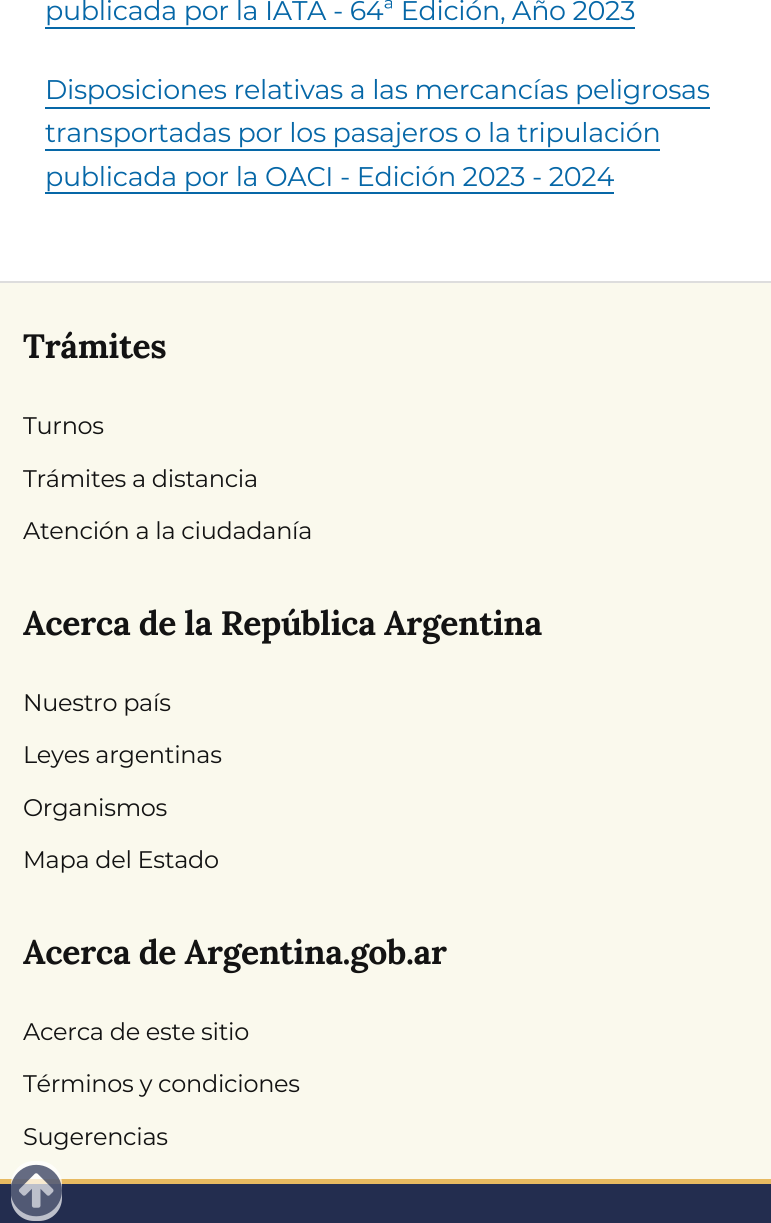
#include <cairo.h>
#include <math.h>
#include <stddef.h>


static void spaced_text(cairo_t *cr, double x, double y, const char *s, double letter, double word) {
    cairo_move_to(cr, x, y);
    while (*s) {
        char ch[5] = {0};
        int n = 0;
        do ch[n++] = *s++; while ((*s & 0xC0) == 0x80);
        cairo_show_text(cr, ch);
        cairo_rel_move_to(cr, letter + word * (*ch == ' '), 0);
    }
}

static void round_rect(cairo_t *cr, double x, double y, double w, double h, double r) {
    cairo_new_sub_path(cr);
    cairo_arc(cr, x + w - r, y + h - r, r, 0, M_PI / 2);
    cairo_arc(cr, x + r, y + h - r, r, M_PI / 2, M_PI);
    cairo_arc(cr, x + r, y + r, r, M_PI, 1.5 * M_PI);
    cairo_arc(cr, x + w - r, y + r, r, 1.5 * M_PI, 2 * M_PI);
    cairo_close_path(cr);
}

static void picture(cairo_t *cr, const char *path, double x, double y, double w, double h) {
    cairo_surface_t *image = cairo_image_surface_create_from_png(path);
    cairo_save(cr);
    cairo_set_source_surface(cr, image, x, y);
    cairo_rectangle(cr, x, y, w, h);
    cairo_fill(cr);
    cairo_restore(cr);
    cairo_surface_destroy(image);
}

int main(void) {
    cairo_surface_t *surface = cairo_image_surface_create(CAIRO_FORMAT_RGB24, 771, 1223);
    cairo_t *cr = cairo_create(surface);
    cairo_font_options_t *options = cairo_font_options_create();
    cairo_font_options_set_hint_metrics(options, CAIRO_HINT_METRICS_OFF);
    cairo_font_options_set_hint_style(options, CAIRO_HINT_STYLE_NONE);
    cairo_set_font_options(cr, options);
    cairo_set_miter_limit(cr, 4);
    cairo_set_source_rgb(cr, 1, 1, 1);
    cairo_paint(cr);
    cairo_select_font_face(cr, "Montserrat", CAIRO_FONT_SLANT_NORMAL, CAIRO_FONT_WEIGHT_NORMAL);
    cairo_set_font_size(cr, 27);
    cairo_set_source_rgb(cr, 0.027, 0.404, 0.655);
    spaced_text(cr, 45, 20, "publicada por la IATA - 64ª Edición, Año 2023", -0.3, 0);
    cairo_rectangle(cr, 45, 27, 590, 2);
    cairo_fill(cr);
    spaced_text(cr, 45, 99, "Disposiciones relativas a las mercancías peligrosas", -0.3, 0);
    cairo_rectangle(cr, 45, 107, 665, 2);
    cairo_fill(cr);
    spaced_text(cr, 45, 142, "transportadas por los pasajeros o la tripulación", -0.3, 0);
    cairo_rectangle(cr, 45, 149, 615, 2);
    cairo_fill(cr);
    spaced_text(cr, 45, 186, "publicada por la OACI - Edición 2023 - 2024", -0.3, 0);
    cairo_rectangle(cr, 45, 192, 569, 2);
    cairo_fill(cr);
    cairo_set_source_rgb(cr, 0.98, 0.973, 0.929);
    cairo_rectangle(cr, 0, 283, 771, 896);
    cairo_fill(cr);
    cairo_set_source_rgb(cr, 0.867, 0.867, 0.867);
    cairo_rectangle(cr, 0, 281, 771, 2);
    cairo_fill(cr);
    cairo_select_font_face(cr, "Lora", CAIRO_FONT_SLANT_NORMAL, CAIRO_FONT_WEIGHT_BOLD);
    cairo_set_font_size(cr, 33.75);
    cairo_set_source_rgb(cr, 0.078, 0.078, 0.078);
    spaced_text(cr, 23, 358, "Trámites", -0.4, 0);
    cairo_select_font_face(cr, "Montserrat", CAIRO_FONT_SLANT_NORMAL, CAIRO_FONT_WEIGHT_NORMAL);
    cairo_set_font_size(cr, 24);
    spaced_text(cr, 23, 434, "Turnos", -0.3, 0);
    spaced_text(cr, 23, 487, "Trámites a distancia", -0.3, 0);
    spaced_text(cr, 23, 539, "Atención a la ciudadanía", -0.3, 0);
    cairo_select_font_face(cr, "Lora", CAIRO_FONT_SLANT_NORMAL, CAIRO_FONT_WEIGHT_BOLD);
    cairo_set_font_size(cr, 33.75);
    spaced_text(cr, 23, 635, "Acerca de la República Argentina", -0.4, 0);
    cairo_select_font_face(cr, "Montserrat", CAIRO_FONT_SLANT_NORMAL, CAIRO_FONT_WEIGHT_NORMAL);
    cairo_set_font_size(cr, 24);
    spaced_text(cr, 23, 711, "Nuestro país", -0.3, 0);
    spaced_text(cr, 23, 763, "Leyes argentinas", -0.3, 0);
    spaced_text(cr, 23, 816, "Organismos", -0.3, 0);
    spaced_text(cr, 23, 868, "Mapa del Estado", -0.3, 0);
    cairo_select_font_face(cr, "Lora", CAIRO_FONT_SLANT_NORMAL, CAIRO_FONT_WEIGHT_BOLD);
    cairo_set_font_size(cr, 33.75);
    spaced_text(cr, 23, 964, "Acerca de Argentina.gob.ar", -0.4, 0);
    cairo_select_font_face(cr, "Montserrat", CAIRO_FONT_SLANT_NORMAL, CAIRO_FONT_WEIGHT_NORMAL);
    cairo_set_font_size(cr, 24);
    spaced_text(cr, 23, 1040, "Acerca de este sitio", -0.3, 0);
    spaced_text(cr, 23, 1092, "Términos y condiciones", -0.3, 0);
    spaced_text(cr, 23, 1145, "Sugerencias", -0.3, 0);
    cairo_set_source_rgb(cr, 0.906, 0.729, 0.38);
    cairo_rectangle(cr, 0, 1179, 771, 5);
    cairo_fill(cr);
    cairo_set_source_rgb(cr, 0.137, 0.176, 0.31);
    cairo_rectangle(cr, 0, 1184, 771, 39);
    cairo_fill(cr);
    cairo_set_source_rgba(cr, 1, 1, 1, 0.7);
    round_rect(cr, 11, 1161, 51, 60, 23);
    cairo_fill(cr);
    picture(cr, "img1.png", 11, 1164, 51, 53);
    cairo_surface_write_to_png(surface, "page.png");
    cairo_font_options_destroy(options);
    cairo_destroy(cr);
    cairo_surface_destroy(surface);
    return 0;
}
